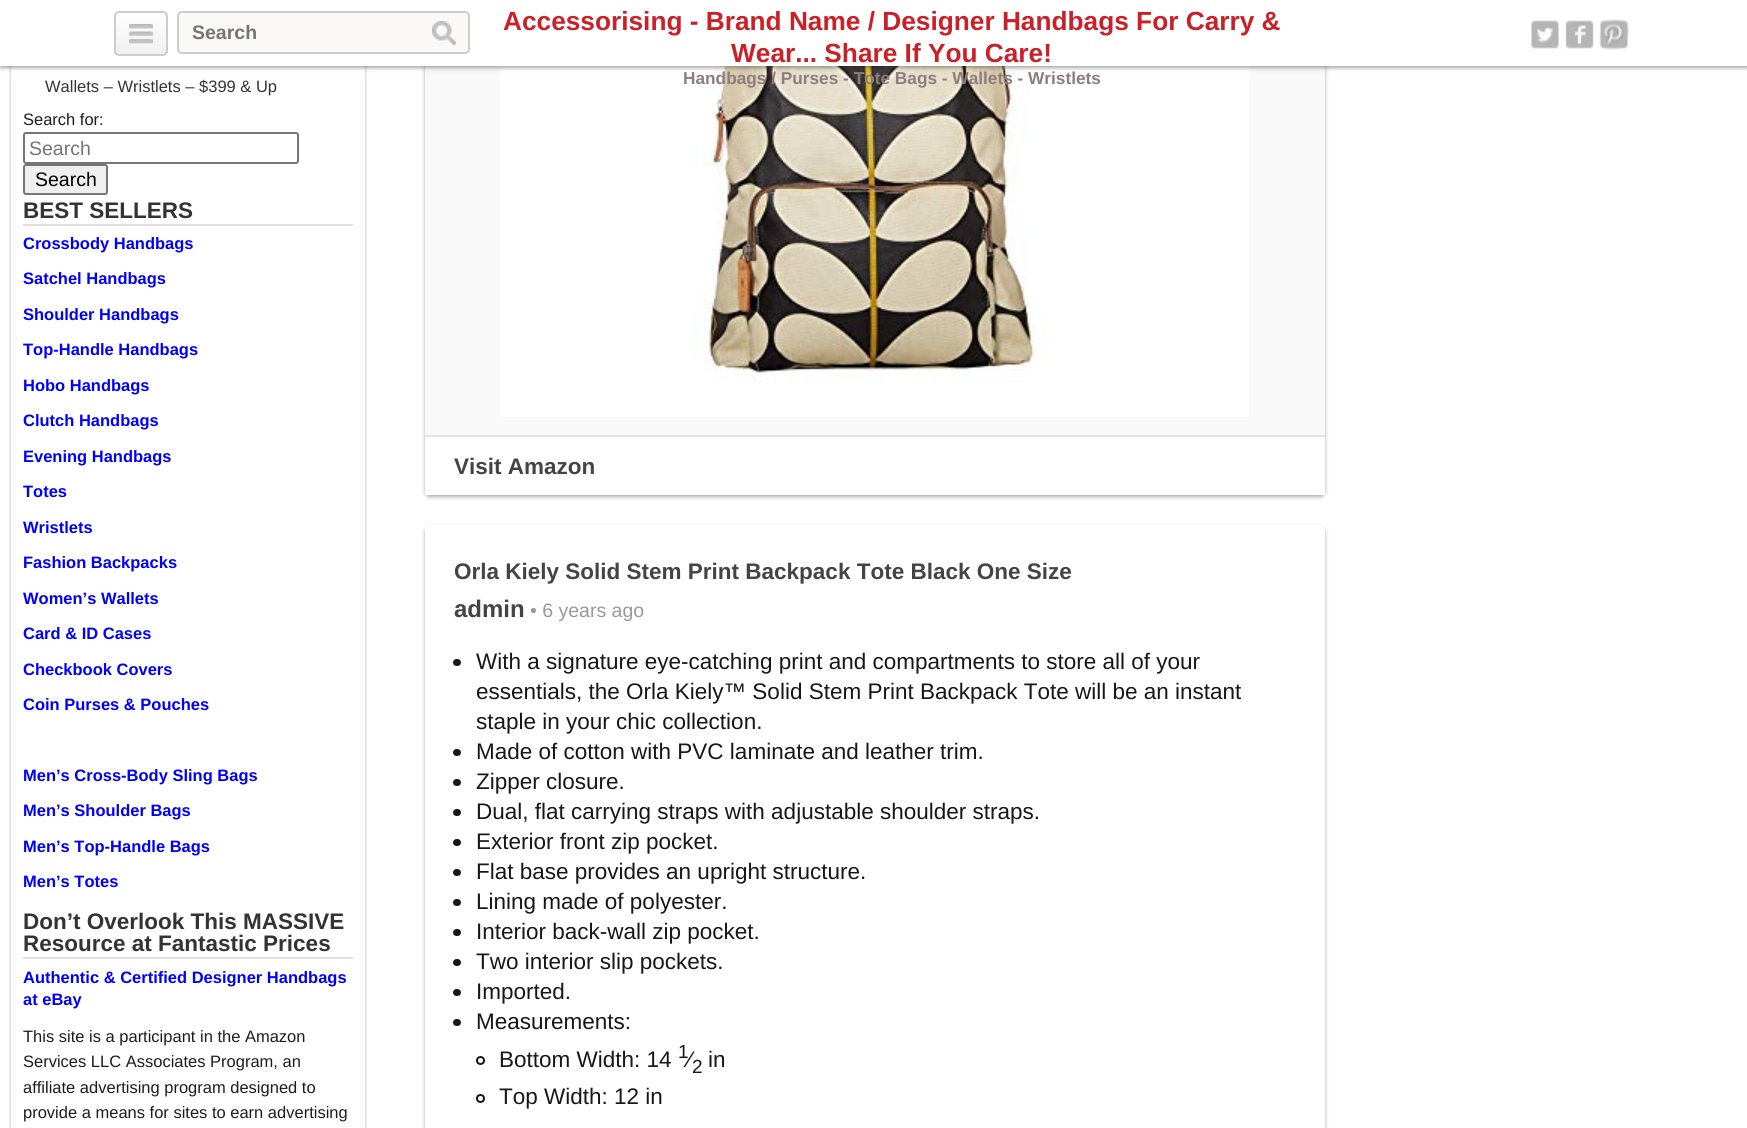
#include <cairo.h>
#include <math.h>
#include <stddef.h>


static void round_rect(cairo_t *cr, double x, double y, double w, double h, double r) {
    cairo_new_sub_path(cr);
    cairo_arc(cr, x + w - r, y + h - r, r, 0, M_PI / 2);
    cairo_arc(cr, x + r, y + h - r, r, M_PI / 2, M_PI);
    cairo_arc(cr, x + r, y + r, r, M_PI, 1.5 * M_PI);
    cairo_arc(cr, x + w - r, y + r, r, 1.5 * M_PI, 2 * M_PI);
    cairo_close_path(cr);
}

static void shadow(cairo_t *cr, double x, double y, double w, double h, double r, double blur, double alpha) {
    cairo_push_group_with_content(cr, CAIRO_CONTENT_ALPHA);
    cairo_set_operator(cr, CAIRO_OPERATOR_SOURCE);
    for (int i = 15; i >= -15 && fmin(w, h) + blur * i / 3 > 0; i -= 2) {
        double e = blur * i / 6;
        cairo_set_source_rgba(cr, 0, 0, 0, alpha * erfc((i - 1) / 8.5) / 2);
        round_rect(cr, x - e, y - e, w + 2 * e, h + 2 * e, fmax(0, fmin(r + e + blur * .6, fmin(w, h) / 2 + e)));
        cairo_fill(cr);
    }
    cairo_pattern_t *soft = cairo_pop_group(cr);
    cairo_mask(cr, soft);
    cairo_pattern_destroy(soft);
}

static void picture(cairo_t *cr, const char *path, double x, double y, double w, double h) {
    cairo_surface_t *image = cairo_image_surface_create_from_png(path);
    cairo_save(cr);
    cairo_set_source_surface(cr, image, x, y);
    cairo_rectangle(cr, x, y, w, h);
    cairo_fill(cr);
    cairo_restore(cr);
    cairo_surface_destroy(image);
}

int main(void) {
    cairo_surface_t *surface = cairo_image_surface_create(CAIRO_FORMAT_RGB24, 1747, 1128);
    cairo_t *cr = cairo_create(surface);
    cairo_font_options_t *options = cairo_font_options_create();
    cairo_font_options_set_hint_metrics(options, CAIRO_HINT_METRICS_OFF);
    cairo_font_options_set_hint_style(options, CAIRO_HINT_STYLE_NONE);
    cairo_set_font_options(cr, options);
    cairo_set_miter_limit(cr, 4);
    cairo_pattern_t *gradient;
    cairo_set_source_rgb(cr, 1, 1, 1);
    cairo_paint(cr);
    cairo_set_source_rgb(cr, 0.133, 0.098, 0.098);
    shadow(cr, 11, -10, 354, 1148, 5, 1.5, 0.4);
    cairo_set_source_rgb(cr, 1, 1, 1);
    cairo_rectangle(cr, 11, 66, 354, 1062);
    cairo_fill(cr);
    cairo_set_source_rgb(cr, 0, 0, 0);
    shadow(cr, 425, -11, 900, 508, 5, 2, 0.33);
    cairo_set_source_rgb(cr, 0.973, 0.973, 0.973);
    cairo_rectangle(cr, 425, 66, 900, 369);
    cairo_fill(cr);
    picture(cr, "img6.png", 500, 66, 749, 351);
    cairo_set_source_rgb(cr, 0.133, 0.098, 0.098);
    shadow(cr, 0, 2, 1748, 66, 0, 2, 0.4);
    cairo_set_source_rgb(cr, 1, 1, 1);
    cairo_rectangle(cr, 0, 0, 1747, 66);
    cairo_fill(cr);
    cairo_save(cr);
    round_rect(cr, 114, 11, 54, 45, 5);
    cairo_clip(cr);
    gradient = cairo_pattern_create_linear(141, 12, 141, 54);
    cairo_pattern_add_color_stop_rgba(gradient, 0, 1, 1, 1, 1);
    cairo_pattern_add_color_stop_rgba(gradient, 1, 0.941, 0.941, 0.941, 1);
    cairo_set_source(cr, gradient);
    cairo_pattern_destroy(gradient);
    cairo_rectangle(cr, 114, 12, 54, 42);
    cairo_fill(cr);
    cairo_restore(cr);
    round_rect(cr, 115, 12, 52, 43, 4);
    cairo_set_source_rgb(cr, 0.8, 0.8, 0.8);
    cairo_stroke(cr);
    picture(cr, "img1.png", 129, 24, 24, 21);
    cairo_set_source_rgb(cr, 0.98, 0.976, 0.969);
    round_rect(cr, 178, 12, 291, 41, 4);
    cairo_fill_preserve(cr);
    cairo_set_source_rgb(cr, 0.8, 0.8, 0.8);
    cairo_stroke(cr);
    cairo_select_font_face(cr, "Liberation Sans", CAIRO_FONT_SLANT_NORMAL, CAIRO_FONT_WEIGHT_BOLD);
    cairo_set_font_size(cr, 19.5);
    cairo_set_source_rgb(cr, 0.459, 0.459, 0.459);
    cairo_move_to(cr, 192, 39);
    cairo_show_text(cr, "Search");
    picture(cr, "img2.png", 432, 21, 24, 24);
    cairo_set_font_size(cr, 26.25);
    cairo_set_source_rgb(cr, 0.796, 0.125, 0.153);
    cairo_move_to(cr, 503, 30);
    cairo_show_text(cr, "Accessorising - Brand Name / Designer Handbags For Carry &");
    cairo_move_to(cr, 731, 62);
    cairo_show_text(cr, "Wear... Share If You Care!");
    cairo_set_font_size(cr, 17.25);
    cairo_set_source_rgb(cr, 0.549, 0.494, 0.494);
    cairo_move_to(cr, 683, 84);
    cairo_show_text(cr, "Handbags / Purses - Tote Bags - Wallets - Wristlets");
    picture(cr, "img3.png", 1531, 20, 28, 29);
    picture(cr, "img4.png", 1565, 20, 29, 29);
    picture(cr, "img5.png", 1599, 19, 30, 31);
    cairo_select_font_face(cr, "Liberation Sans", CAIRO_FONT_SLANT_NORMAL, CAIRO_FONT_WEIGHT_NORMAL);
    cairo_set_font_size(cr, 16.5);
    cairo_set_source_rgb(cr, 0.2, 0.2, 0.2);
    cairo_move_to(cr, 45, 92);
    cairo_show_text(cr, "Wallets – Wristlets – $399 & Up");
    cairo_set_source_rgb(cr, 0.129, 0.098, 0.133);
    cairo_move_to(cr, 23, 125);
    cairo_show_text(cr, "Search for:");
    round_rect(cr, 24, 133, 274, 30, 2);
    cairo_set_source_rgb(cr, 0.463, 0.463, 0.463);
    cairo_stroke(cr);
    cairo_set_font_size(cr, 19.5);
    cairo_set_source_rgb(cr, 0.459, 0.459, 0.459);
    cairo_move_to(cr, 29, 155);
    cairo_show_text(cr, "Search");
    cairo_set_source_rgb(cr, 0.937, 0.937, 0.937);
    round_rect(cr, 24, 165, 83, 29, 2);
    cairo_fill_preserve(cr);
    cairo_set_source_rgb(cr, 0.463, 0.463, 0.463);
    cairo_stroke(cr);
    cairo_set_source_rgb(cr, 0, 0, 0);
    cairo_move_to(cr, 35, 186);
    cairo_show_text(cr, "Search");
    cairo_set_source_rgb(cr, 0.882, 0.875, 0.875);
    cairo_rectangle(cr, 23, 224, 330, 2);
    cairo_fill(cr);
    cairo_select_font_face(cr, "Liberation Sans", CAIRO_FONT_SLANT_NORMAL, CAIRO_FONT_WEIGHT_BOLD);
    cairo_set_font_size(cr, 22.5);
    cairo_set_source_rgb(cr, 0.2, 0.2, 0.2);
    cairo_move_to(cr, 23, 218);
    cairo_show_text(cr, "BEST SELLERS");
    cairo_set_font_size(cr, 16.5);
    cairo_set_source_rgb(cr, 0, 0, 1);
    cairo_move_to(cr, 23, 249);
    cairo_show_text(cr, "Crossbody Handbags");
    cairo_move_to(cr, 23, 284);
    cairo_show_text(cr, "Satchel Handbags");
    cairo_move_to(cr, 23, 320);
    cairo_show_text(cr, "Shoulder Handbags");
    cairo_move_to(cr, 23, 355);
    cairo_show_text(cr, "Top-Handle Handbags");
    cairo_move_to(cr, 23, 391);
    cairo_show_text(cr, "Hobo Handbags");
    cairo_move_to(cr, 23, 426);
    cairo_show_text(cr, "Clutch Handbags");
    cairo_move_to(cr, 23, 462);
    cairo_show_text(cr, "Evening Handbags");
    cairo_move_to(cr, 23, 497);
    cairo_show_text(cr, "Totes");
    cairo_move_to(cr, 23, 533);
    cairo_show_text(cr, "Wristlets");
    cairo_move_to(cr, 23, 568);
    cairo_show_text(cr, "Fashion Backpacks");
    cairo_move_to(cr, 23, 604);
    cairo_show_text(cr, "Women’s Wallets");
    cairo_move_to(cr, 23, 639);
    cairo_show_text(cr, "Card & ID Cases");
    cairo_move_to(cr, 23, 675);
    cairo_show_text(cr, "Checkbook Covers");
    cairo_move_to(cr, 23, 710);
    cairo_show_text(cr, "Coin Purses & Pouches");
    cairo_move_to(cr, 23, 781);
    cairo_show_text(cr, "Men’s Cross-Body Sling Bags");
    cairo_move_to(cr, 23, 816);
    cairo_show_text(cr, "Men’s Shoulder Bags");
    cairo_move_to(cr, 23, 852);
    cairo_show_text(cr, "Men’s Top-Handle Bags");
    cairo_move_to(cr, 23, 887);
    cairo_show_text(cr, "Men’s Totes");
    cairo_set_source_rgb(cr, 0.882, 0.875, 0.875);
    cairo_rectangle(cr, 23, 957, 330, 2);
    cairo_fill(cr);
    cairo_set_font_size(cr, 22.5);
    cairo_set_source_rgb(cr, 0.2, 0.2, 0.2);
    cairo_move_to(cr, 23, 929);
    cairo_show_text(cr, "Don’t Overlook This MASSIVE");
    cairo_move_to(cr, 23, 951);
    cairo_show_text(cr, "Resource at Fantastic Prices");
    cairo_set_font_size(cr, 16.5);
    cairo_set_source_rgb(cr, 0, 0, 1);
    cairo_move_to(cr, 23, 983);
    cairo_show_text(cr, "Authentic & Certified Designer Handbags");
    cairo_move_to(cr, 23, 1005);
    cairo_show_text(cr, "at eBay");
    cairo_select_font_face(cr, "Liberation Sans", CAIRO_FONT_SLANT_NORMAL, CAIRO_FONT_WEIGHT_NORMAL);
    cairo_set_source_rgb(cr, 0.129, 0.098, 0.133);
    cairo_move_to(cr, 23, 1042);
    cairo_show_text(cr, "This site is a participant in the Amazon");
    cairo_move_to(cr, 23, 1067);
    cairo_show_text(cr, "Services LLC Associates Program, an");
    cairo_move_to(cr, 23, 1093);
    cairo_show_text(cr, "affiliate advertising program designed to");
    cairo_move_to(cr, 23, 1118);
    cairo_show_text(cr, "provide a means for sites to earn advertising");
    cairo_set_source_rgb(cr, 1, 1, 1);
    cairo_rectangle(cr, 425, 437, 900, 58);
    cairo_fill(cr);
    cairo_set_source_rgb(cr, 0.89, 0.89, 0.89);
    cairo_rectangle(cr, 425, 435, 900, 2);
    cairo_fill(cr);
    cairo_select_font_face(cr, "Liberation Sans", CAIRO_FONT_SLANT_NORMAL, CAIRO_FONT_WEIGHT_BOLD);
    cairo_set_font_size(cr, 22.5);
    cairo_set_source_rgb(cr, 0.267, 0.267, 0.267);
    cairo_move_to(cr, 454, 474);
    cairo_show_text(cr, "Visit Amazon");
    cairo_set_source_rgb(cr, 0, 0, 0);
    shadow(cr, 425, 527, 900, 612, 5, 2, 0.33);
    cairo_set_source_rgb(cr, 1, 1, 1);
    round_rect(cr, 425, 525, 900, 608, 5);
    cairo_fill(cr);
    cairo_set_source_rgb(cr, 0.267, 0.267, 0.267);
    cairo_move_to(cr, 454, 579);
    cairo_show_text(cr, "Orla Kiely Solid Stem Print Backpack Tote Black One Size");
    cairo_set_font_size(cr, 24);
    cairo_move_to(cr, 454, 617);
    cairo_show_text(cr, "admin");
    cairo_select_font_face(cr, "Liberation Sans", CAIRO_FONT_SLANT_NORMAL, CAIRO_FONT_WEIGHT_NORMAL);
    cairo_set_font_size(cr, 19.5);
    cairo_set_source_rgb(cr, 0.6, 0.6, 0.6);
    cairo_move_to(cr, 530, 617);
    cairo_show_text(cr, "• 6 years ago");
    cairo_set_source_rgb(cr, 0.09, 0.09, 0.09);
    round_rect(cr, 453, 659, 8, 7, 3.5);
    cairo_fill(cr);
    cairo_set_font_size(cr, 22.5);
    cairo_move_to(cr, 476, 669);
    cairo_show_text(cr, "With a signature eye-catching print and compartments to store all of your");
    cairo_move_to(cr, 476, 699);
    cairo_show_text(cr, "essentials, the Orla Kiely™ Solid Stem Print Backpack Tote will be an instant");
    cairo_move_to(cr, 476, 729);
    cairo_show_text(cr, "staple in your chic collection.");
    round_rect(cr, 453, 749, 8, 7, 3.5);
    cairo_fill(cr);
    cairo_move_to(cr, 476, 759);
    cairo_show_text(cr, "Made of cotton with PVC laminate and leather trim.");
    round_rect(cr, 453, 779, 8, 7, 3.5);
    cairo_fill(cr);
    cairo_move_to(cr, 476, 789);
    cairo_show_text(cr, "Zipper closure.");
    round_rect(cr, 453, 809, 8, 7, 3.5);
    cairo_fill(cr);
    cairo_move_to(cr, 476, 819);
    cairo_show_text(cr, "Dual, flat carrying straps with adjustable shoulder straps.");
    round_rect(cr, 453, 839, 8, 7, 3.5);
    cairo_fill(cr);
    cairo_move_to(cr, 476, 849);
    cairo_show_text(cr, "Exterior front zip pocket.");
    round_rect(cr, 453, 869, 8, 7, 3.5);
    cairo_fill(cr);
    cairo_move_to(cr, 476, 879);
    cairo_show_text(cr, "Flat base provides an upright structure.");
    round_rect(cr, 453, 899, 8, 7, 3.5);
    cairo_fill(cr);
    cairo_move_to(cr, 476, 909);
    cairo_show_text(cr, "Lining made of polyester.");
    round_rect(cr, 453, 929, 8, 7, 3.5);
    cairo_fill(cr);
    cairo_move_to(cr, 476, 939);
    cairo_show_text(cr, "Interior back-wall zip pocket.");
    round_rect(cr, 453, 959, 8, 7, 3.5);
    cairo_fill(cr);
    cairo_move_to(cr, 476, 969);
    cairo_show_text(cr, "Two interior slip pockets.");
    round_rect(cr, 453, 989, 8, 7, 3.5);
    cairo_fill(cr);
    cairo_move_to(cr, 476, 999);
    cairo_show_text(cr, "Imported.");
    round_rect(cr, 453, 1019, 8, 7, 3.5);
    cairo_fill(cr);
    cairo_move_to(cr, 476, 1029);
    cairo_show_text(cr, "Measurements:");
    cairo_move_to(cr, 499, 1067);
    cairo_show_text(cr, "Bottom Width: 14");
    cairo_set_font_size(cr, 19);
    cairo_move_to(cr, 678, 1058);
    cairo_show_text(cr, "1");
    cairo_set_font_size(cr, 22.5);
    cairo_move_to(cr, 708, 1067);
    cairo_show_text(cr, "in");
    cairo_new_path(cr);
    cairo_arc(cr, 480.5, 1060.5, 3.5, 0, 2 * M_PI);
    cairo_stroke(cr);
    cairo_move_to(cr, 688, 1067);
    cairo_show_text(cr, "⁄");
    cairo_set_font_size(cr, 19);
    cairo_move_to(cr, 692, 1073);
    cairo_show_text(cr, "2");
    cairo_new_path(cr);
    cairo_arc(cr, 480.5, 1098.5, 3.5, 0, 2 * M_PI);
    cairo_stroke(cr);
    cairo_set_font_size(cr, 22.5);
    cairo_move_to(cr, 499, 1104);
    cairo_show_text(cr, "Top Width: 12 in");
    cairo_surface_write_to_png(surface, "page.png");
    cairo_font_options_destroy(options);
    cairo_destroy(cr);
    cairo_surface_destroy(surface);
    return 0;
}
